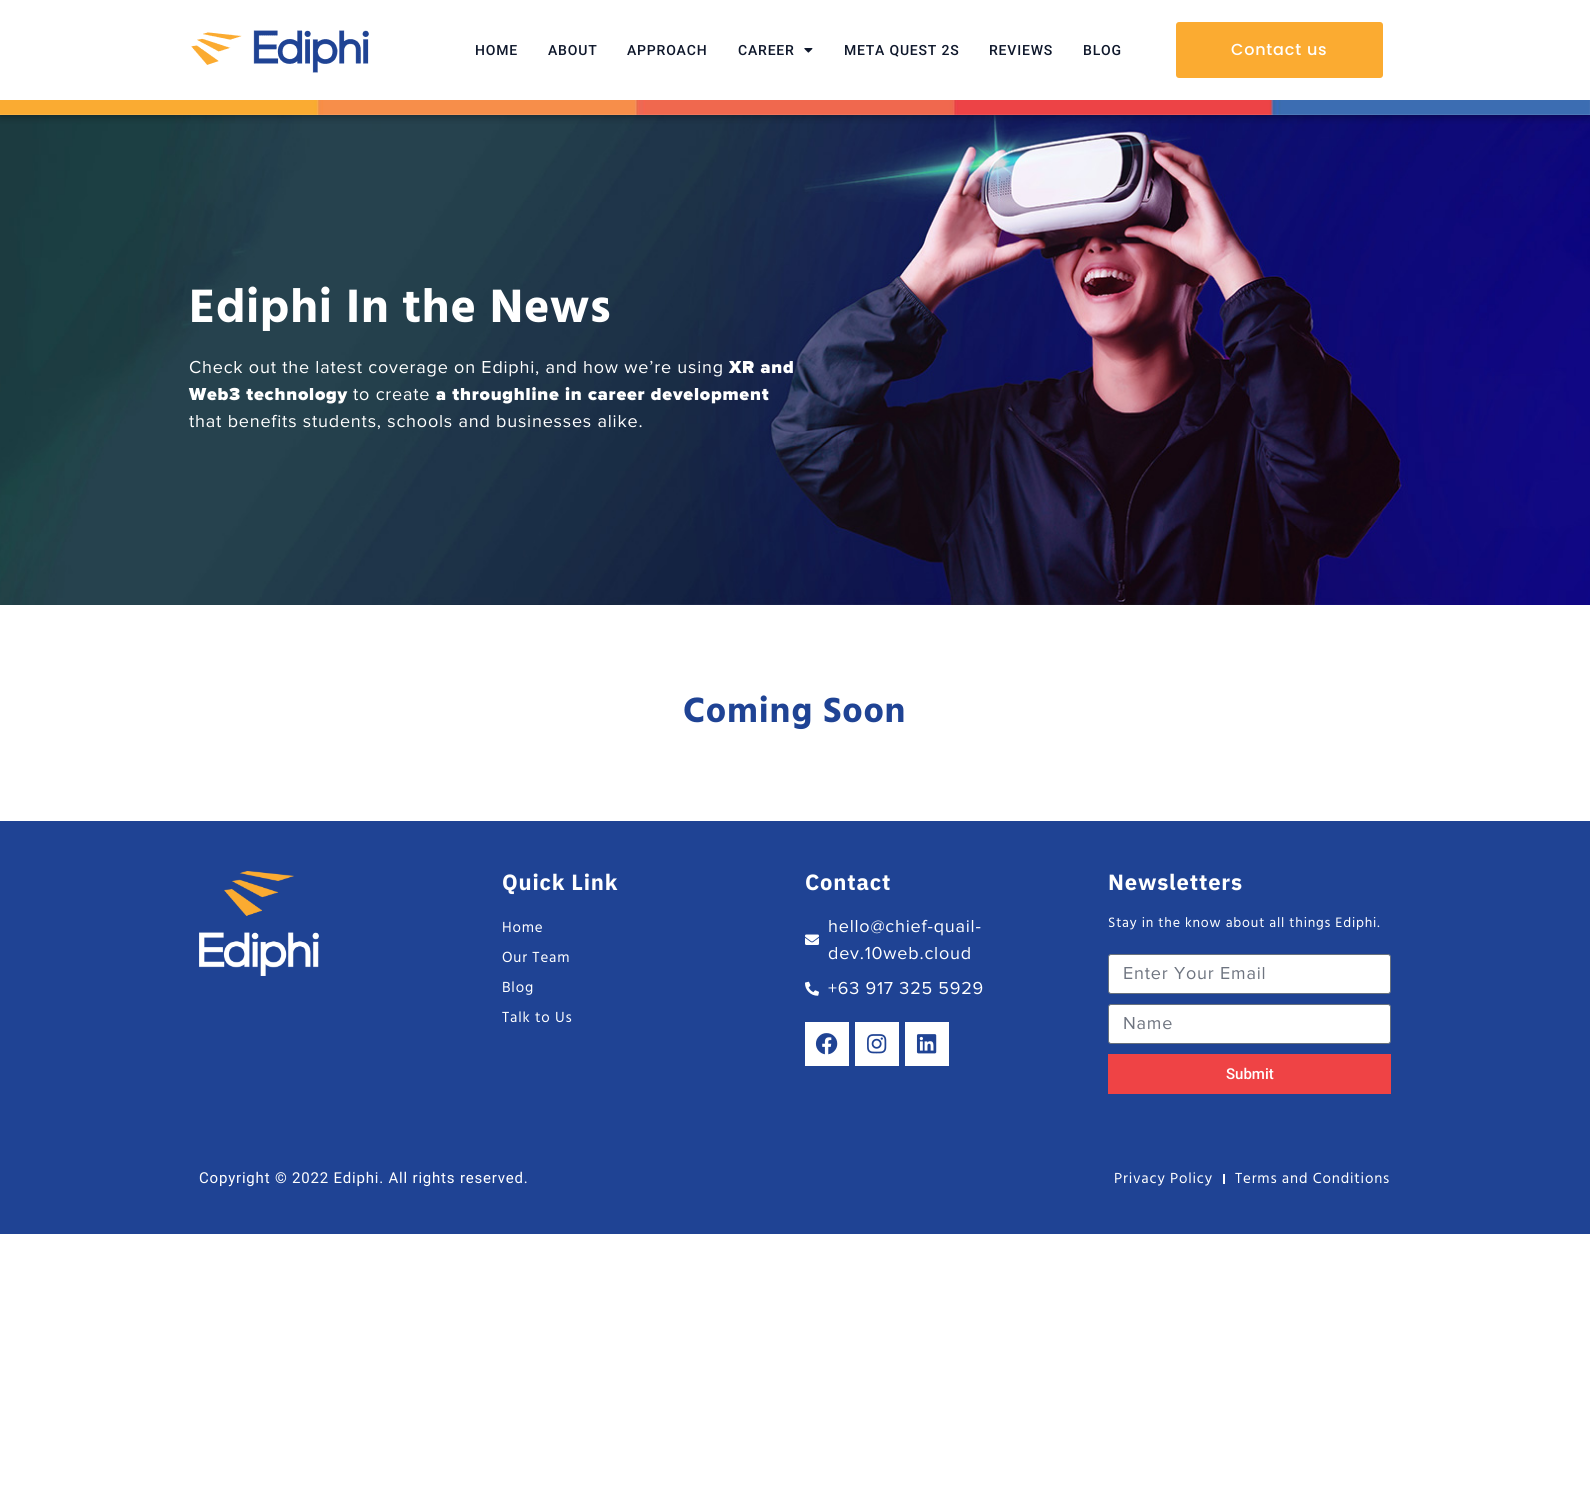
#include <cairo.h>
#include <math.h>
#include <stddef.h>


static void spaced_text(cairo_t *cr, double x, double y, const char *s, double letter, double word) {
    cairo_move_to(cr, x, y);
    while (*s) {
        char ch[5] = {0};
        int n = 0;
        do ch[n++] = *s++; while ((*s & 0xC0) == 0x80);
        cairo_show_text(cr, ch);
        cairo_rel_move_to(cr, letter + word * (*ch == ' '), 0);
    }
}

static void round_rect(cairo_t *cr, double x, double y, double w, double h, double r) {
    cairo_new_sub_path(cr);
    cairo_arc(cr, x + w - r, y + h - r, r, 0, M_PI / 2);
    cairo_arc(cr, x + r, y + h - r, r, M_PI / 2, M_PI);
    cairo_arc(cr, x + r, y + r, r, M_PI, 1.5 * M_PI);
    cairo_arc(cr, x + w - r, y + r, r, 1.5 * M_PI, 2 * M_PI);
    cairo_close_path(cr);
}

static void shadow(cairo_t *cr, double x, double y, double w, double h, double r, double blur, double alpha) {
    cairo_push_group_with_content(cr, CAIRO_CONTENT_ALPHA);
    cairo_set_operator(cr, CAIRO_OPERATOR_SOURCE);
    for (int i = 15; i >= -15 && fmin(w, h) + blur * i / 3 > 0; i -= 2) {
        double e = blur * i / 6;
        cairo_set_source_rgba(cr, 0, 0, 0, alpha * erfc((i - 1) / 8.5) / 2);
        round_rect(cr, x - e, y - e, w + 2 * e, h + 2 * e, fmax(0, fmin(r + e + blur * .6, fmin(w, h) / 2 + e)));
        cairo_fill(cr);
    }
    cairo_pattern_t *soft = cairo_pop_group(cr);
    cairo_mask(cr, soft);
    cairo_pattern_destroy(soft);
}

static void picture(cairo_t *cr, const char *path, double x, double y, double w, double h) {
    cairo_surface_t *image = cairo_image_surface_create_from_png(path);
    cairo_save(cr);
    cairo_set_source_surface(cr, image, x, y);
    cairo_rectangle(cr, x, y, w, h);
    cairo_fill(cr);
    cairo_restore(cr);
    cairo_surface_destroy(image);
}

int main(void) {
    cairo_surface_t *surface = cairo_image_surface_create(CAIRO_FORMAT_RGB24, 1590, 1488);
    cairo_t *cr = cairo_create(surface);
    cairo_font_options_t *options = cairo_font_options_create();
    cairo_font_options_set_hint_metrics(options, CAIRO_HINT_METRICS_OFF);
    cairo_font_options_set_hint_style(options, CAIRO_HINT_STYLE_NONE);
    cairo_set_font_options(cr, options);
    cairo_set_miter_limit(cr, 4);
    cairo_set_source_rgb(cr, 1, 1, 1);
    cairo_paint(cr);
    picture(cr, "img4.png", 0, 115, 1590, 490);
    cairo_save(cr);
    cairo_rectangle(cr, 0, 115, 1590, 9);
    cairo_clip(cr);
    cairo_set_source_rgb(cr, 0, 0, 0);
    shadow(cr, 0, 0, 1590, 115, 0, 5, 0.5);
    cairo_restore(cr);
    picture(cr, "img1.png", 191, 30, 178, 43);
    cairo_select_font_face(cr, "Roboto Medium", CAIRO_FONT_SLANT_NORMAL, CAIRO_FONT_WEIGHT_NORMAL);
    cairo_set_font_size(cr, 14);
    cairo_set_source_rgb(cr, 0.055, 0.09, 0.169);
    spaced_text(cr, 475, 55, "HOME", 0.8, 0);
    spaced_text(cr, 548, 55, "ABOUT", 0.8, 0);
    spaced_text(cr, 627, 55, "APPROACH", 0.8, 0);
    spaced_text(cr, 738, 55, "CAREER", 0.8, 0);
    picture(cr, "img2.png", 804, 48, 9, 5);
    spaced_text(cr, 844, 55, "META QUEST 2S", 0.8, 0);
    spaced_text(cr, 989, 55, "REVIEWS", 0.8, 0);
    spaced_text(cr, 1083, 55, "BLOG", 0.8, 0);
    cairo_set_source_rgb(cr, 0.984, 0.671, 0.192);
    round_rect(cr, 1176, 22, 207, 56, 3);
    cairo_fill(cr);
    cairo_select_font_face(cr, "Poppins Medium", CAIRO_FONT_SLANT_NORMAL, CAIRO_FONT_WEIGHT_NORMAL);
    cairo_set_font_size(cr, 16);
    cairo_set_source_rgb(cr, 1, 1, 1);
    spaced_text(cr, 1231, 55, "Contact us", 0.8, 0);
    picture(cr, "img3.png", 0, 100, 1590, 15);
    cairo_select_font_face(cr, "Hind", CAIRO_FONT_SLANT_NORMAL, CAIRO_FONT_WEIGHT_BOLD);
    cairo_set_font_size(cr, 48);
    spaced_text(cr, 189, 322, "Ediphi In the News", 0.8, 0);
    cairo_select_font_face(cr, "Proxima Nova", CAIRO_FONT_SLANT_NORMAL, CAIRO_FONT_WEIGHT_NORMAL);
    cairo_set_font_size(cr, 18);
    spaced_text(cr, 189, 373, "Check out the latest coverage on Ediphi, and how we’re using", 0.8, 0);
    cairo_select_font_face(cr, "Proxima Nova Black", CAIRO_FONT_SLANT_NORMAL, CAIRO_FONT_WEIGHT_NORMAL);
    spaced_text(cr, 729, 373, "XR and", 0.8, 0);
    spaced_text(cr, 189, 400, "Web3 technology", 0.8, 0);
    cairo_select_font_face(cr, "Proxima Nova", CAIRO_FONT_SLANT_NORMAL, CAIRO_FONT_WEIGHT_NORMAL);
    spaced_text(cr, 353, 400, "to create", 0.8, 0);
    cairo_select_font_face(cr, "Proxima Nova Black", CAIRO_FONT_SLANT_NORMAL, CAIRO_FONT_WEIGHT_NORMAL);
    spaced_text(cr, 436, 400, "a throughline in career development", 0.8, 0);
    cairo_select_font_face(cr, "Proxima Nova", CAIRO_FONT_SLANT_NORMAL, CAIRO_FONT_WEIGHT_NORMAL);
    spaced_text(cr, 189, 427, "that benefits students, schools and businesses alike.", 0.8, 0);
    cairo_select_font_face(cr, "Hind", CAIRO_FONT_SLANT_NORMAL, CAIRO_FONT_WEIGHT_BOLD);
    cairo_set_font_size(cr, 36);
    cairo_set_source_rgb(cr, 0.122, 0.263, 0.58);
    spaced_text(cr, 683, 722, "Coming Soon", 0.8, 0);
    cairo_rectangle(cr, 0, 821, 1590, 413);
    cairo_fill(cr);
    picture(cr, "img5.png", 199, 871, 120, 105);
    cairo_select_font_face(cr, "IBM Plex Sans", CAIRO_FONT_SLANT_NORMAL, CAIRO_FONT_WEIGHT_BOLD);
    cairo_set_font_size(cr, 22);
    cairo_set_source_rgb(cr, 1, 1, 1);
    spaced_text(cr, 502, 890, "Quick Link", 0.8, 0);
    cairo_select_font_face(cr, "Hind", CAIRO_FONT_SLANT_NORMAL, CAIRO_FONT_WEIGHT_NORMAL);
    cairo_set_font_size(cr, 15);
    spaced_text(cr, 502, 932, "Home", 0.8, 0);
    spaced_text(cr, 502, 962, "Our Team", 0.8, 0);
    spaced_text(cr, 502, 992, "Blog", 0.8, 0);
    spaced_text(cr, 502, 1022, "Talk to Us", 0.8, 0);
    cairo_select_font_face(cr, "IBM Plex Sans", CAIRO_FONT_SLANT_NORMAL, CAIRO_FONT_WEIGHT_BOLD);
    cairo_set_font_size(cr, 22);
    spaced_text(cr, 805, 890, "Contact", 0.8, 0);
    picture(cr, "img6.png", 805, 934, 14, 11);
    cairo_select_font_face(cr, "Proxima Nova", CAIRO_FONT_SLANT_NORMAL, CAIRO_FONT_WEIGHT_NORMAL);
    cairo_set_font_size(cr, 18);
    spaced_text(cr, 828, 932, "hello@chief-quail-", 0.8, 0);
    spaced_text(cr, 828, 959, "dev.10web.cloud", 0.8, 0);
    picture(cr, "img7.png", 805, 981, 14, 15);
    spaced_text(cr, 828, 994, "+63 917 325 5929", 0.8, 0);
    cairo_rectangle(cr, 805, 1022, 44, 44);
    cairo_fill(cr);
    picture(cr, "img8.png", 815, 1033, 23, 22);
    cairo_rectangle(cr, 855, 1022, 44, 44);
    cairo_fill(cr);
    picture(cr, "img9.png", 867, 1034, 20, 20);
    cairo_rectangle(cr, 905, 1022, 44, 44);
    cairo_fill(cr);
    picture(cr, "img10.png", 916, 1034, 21, 20);
    cairo_select_font_face(cr, "IBM Plex Sans", CAIRO_FONT_SLANT_NORMAL, CAIRO_FONT_WEIGHT_BOLD);
    cairo_set_font_size(cr, 22);
    spaced_text(cr, 1108, 890, "Newsletters", 0.8, 0);
    cairo_select_font_face(cr, "Hind", CAIRO_FONT_SLANT_NORMAL, CAIRO_FONT_WEIGHT_NORMAL);
    cairo_set_font_size(cr, 14);
    spaced_text(cr, 1108, 927, "Stay in the know about all things Ediphi.", 0.8, 0);
    round_rect(cr, 1108.5, 954.5, 282, 39, 2.5);
    cairo_fill_preserve(cr);
    cairo_set_source_rgb(cr, 0.412, 0.447, 0.49);
    cairo_set_line_width(cr, 1);
    cairo_stroke(cr);
    cairo_select_font_face(cr, "Proxima Nova", CAIRO_FONT_SLANT_NORMAL, CAIRO_FONT_WEIGHT_NORMAL);
    cairo_set_font_size(cr, 18);
    cairo_set_source_rgb(cr, 0.431, 0.455, 0.502);
    spaced_text(cr, 1123, 979, "Enter Your Email", 0.8, 0);
    cairo_set_source_rgb(cr, 1, 1, 1);
    round_rect(cr, 1108.5, 1004.5, 282, 39, 2.5);
    cairo_fill_preserve(cr);
    cairo_set_source_rgb(cr, 0.412, 0.447, 0.49);
    cairo_stroke(cr);
    cairo_set_source_rgb(cr, 0.431, 0.455, 0.502);
    spaced_text(cr, 1123, 1029, "Name", 0.8, 0);
    cairo_set_source_rgb(cr, 0.937, 0.263, 0.271);
    cairo_rectangle(cr, 1108, 1054, 283, 40);
    cairo_fill(cr);
    cairo_select_font_face(cr, "Roboto Medium", CAIRO_FONT_SLANT_NORMAL, CAIRO_FONT_WEIGHT_NORMAL);
    cairo_set_font_size(cr, 15);
    cairo_set_source_rgb(cr, 1, 1, 1);
    cairo_move_to(cr, 1226, 1079);
    cairo_show_text(cr, "Submit");
    cairo_select_font_face(cr, "Roboto", CAIRO_FONT_SLANT_NORMAL, CAIRO_FONT_WEIGHT_NORMAL);
    spaced_text(cr, 199, 1183, "Copyright © 2022 Ediphi. All rights reserved.", 0.8, 0);
    cairo_select_font_face(cr, "Hind", CAIRO_FONT_SLANT_NORMAL, CAIRO_FONT_WEIGHT_NORMAL);
    spaced_text(cr, 1114, 1183, "Privacy Policy", 0.8, 0);
    cairo_rectangle(cr, 1223, 1174, 2, 10);
    cairo_fill(cr);
    spaced_text(cr, 1235, 1183, "Terms and Conditions", 0.8, 0);
    cairo_surface_write_to_png(surface, "page.png");
    cairo_font_options_destroy(options);
    cairo_destroy(cr);
    cairo_surface_destroy(surface);
    return 0;
}
